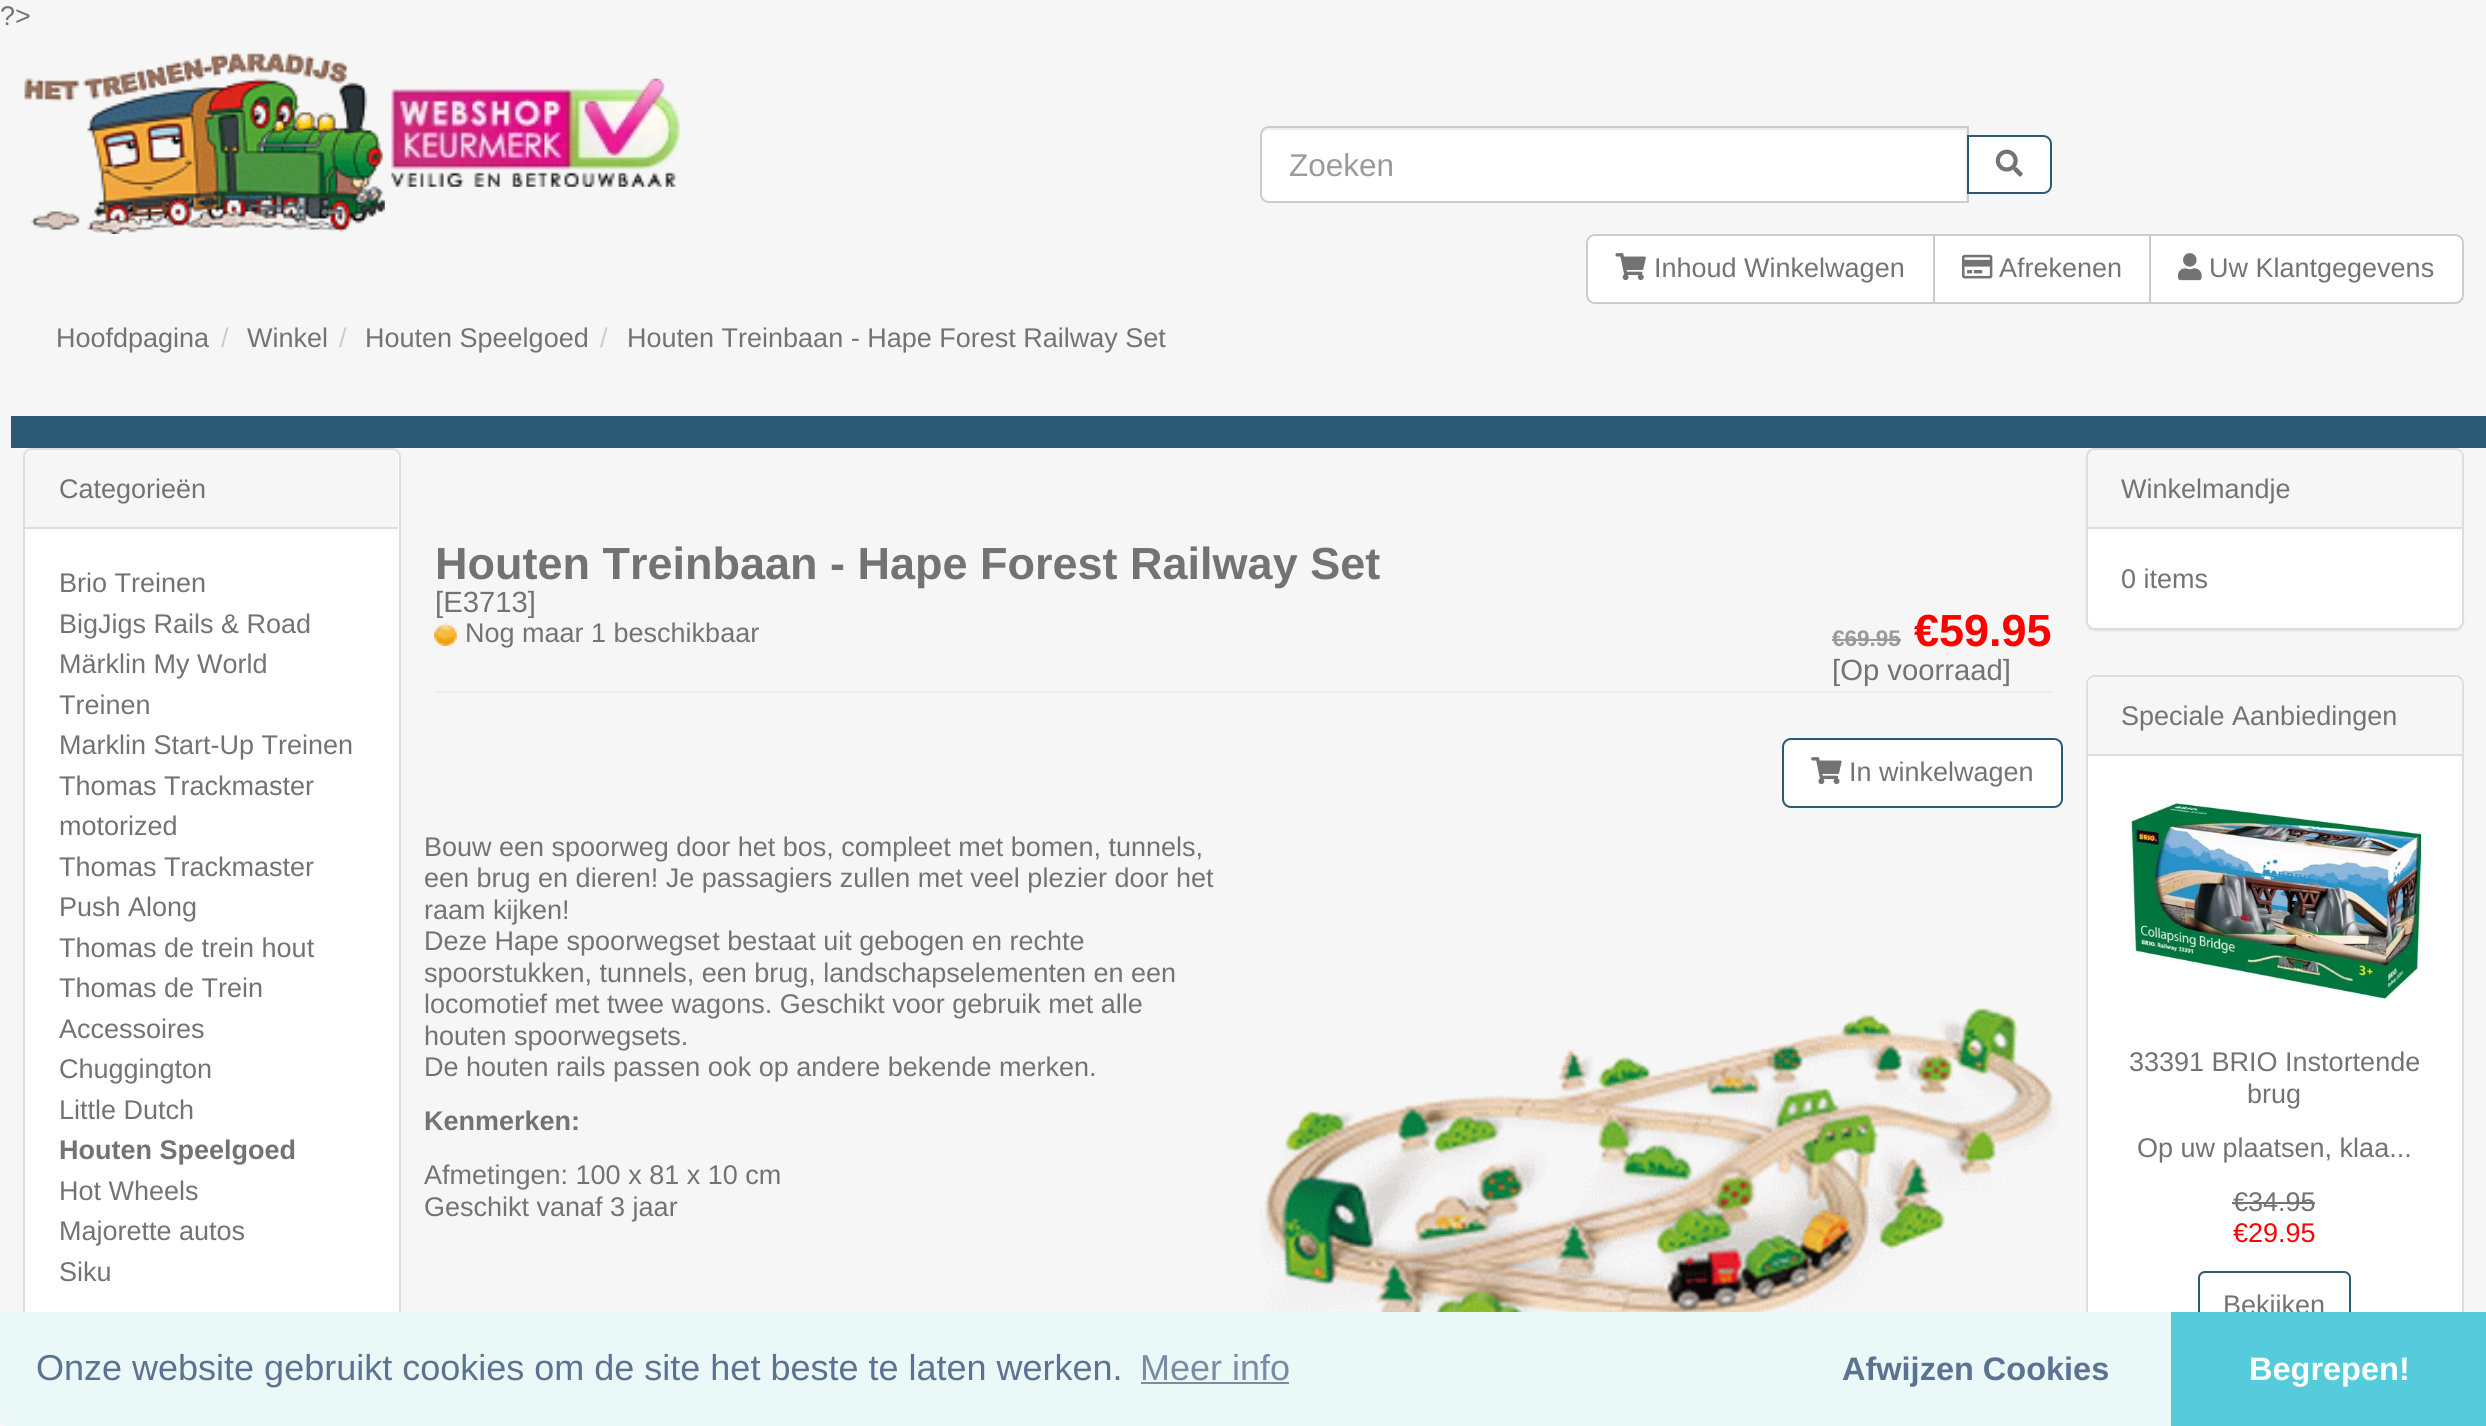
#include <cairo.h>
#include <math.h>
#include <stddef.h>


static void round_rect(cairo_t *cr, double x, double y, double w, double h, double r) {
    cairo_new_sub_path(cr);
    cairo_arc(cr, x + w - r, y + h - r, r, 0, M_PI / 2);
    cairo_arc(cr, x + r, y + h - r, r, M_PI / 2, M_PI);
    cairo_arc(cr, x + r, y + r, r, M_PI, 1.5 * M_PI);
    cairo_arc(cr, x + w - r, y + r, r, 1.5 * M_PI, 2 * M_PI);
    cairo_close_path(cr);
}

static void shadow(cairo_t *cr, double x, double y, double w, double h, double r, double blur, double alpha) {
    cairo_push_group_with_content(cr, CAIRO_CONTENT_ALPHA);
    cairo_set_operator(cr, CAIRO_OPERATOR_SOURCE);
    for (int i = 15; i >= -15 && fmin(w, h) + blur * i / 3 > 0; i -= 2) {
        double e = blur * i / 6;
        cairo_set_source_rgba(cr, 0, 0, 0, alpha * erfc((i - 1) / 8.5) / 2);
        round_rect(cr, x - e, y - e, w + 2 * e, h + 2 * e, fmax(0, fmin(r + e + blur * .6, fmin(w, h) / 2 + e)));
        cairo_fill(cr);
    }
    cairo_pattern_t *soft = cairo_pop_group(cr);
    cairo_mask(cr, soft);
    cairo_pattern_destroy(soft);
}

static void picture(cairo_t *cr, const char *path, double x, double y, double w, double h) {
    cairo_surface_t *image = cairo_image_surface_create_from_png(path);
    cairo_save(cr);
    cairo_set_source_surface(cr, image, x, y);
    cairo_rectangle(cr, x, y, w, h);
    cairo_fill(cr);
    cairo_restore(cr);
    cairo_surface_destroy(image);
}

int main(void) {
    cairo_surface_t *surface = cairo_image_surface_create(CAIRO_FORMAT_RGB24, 2486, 1426);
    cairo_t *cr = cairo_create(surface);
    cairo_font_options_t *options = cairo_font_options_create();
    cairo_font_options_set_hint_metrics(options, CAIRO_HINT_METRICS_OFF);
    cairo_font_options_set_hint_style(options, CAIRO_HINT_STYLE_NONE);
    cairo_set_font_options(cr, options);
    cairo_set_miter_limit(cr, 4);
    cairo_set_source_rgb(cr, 0.961, 0.961, 0.961);
    cairo_paint(cr);
    cairo_select_font_face(cr, "Liberation Sans", CAIRO_FONT_SLANT_NORMAL, CAIRO_FONT_WEIGHT_NORMAL);
    cairo_set_font_size(cr, 27);
    cairo_set_source_rgb(cr, 0.451, 0.451, 0.451);
    cairo_move_to(cr, 0, 25);
    cairo_show_text(cr, "?>");
    picture(cr, "img1.png", 24, 53, 361, 181);
    picture(cr, "img2.png", 391, 78, 289, 109);
    cairo_set_source_rgb(cr, 1, 1, 1);
    cairo_new_path(cr);
    cairo_move_to(cr, 1269, 126);
    cairo_line_to(cr, 1969, 126);
    cairo_line_to(cr, 1969, 203);
    cairo_line_to(cr, 1269, 203);
    cairo_curve_to(cr, 1264, 203, 1260, 199, 1260, 194);
    cairo_line_to(cr, 1260, 135);
    cairo_curve_to(cr, 1260, 130, 1264, 126, 1269, 126);
    cairo_close_path(cr);
    cairo_fill(cr);
    cairo_set_source_rgb(cr, 0.925, 0.925, 0.925);
    cairo_new_path(cr);
    cairo_move_to(cr, 1269, 130);
    cairo_line_to(cr, 1966, 130);
    cairo_line_to(cr, 1966, 200);
    cairo_line_to(cr, 1967, 200);
    cairo_line_to(cr, 1967, 128);
    cairo_line_to(cr, 1269, 128);
    cairo_curve_to(cr, 1264, 128, 1262, 133, 1262, 137);
    cairo_curve_to(cr, 1262, 134, 1265, 130, 1269, 130);
    cairo_close_path(cr);
    cairo_fill(cr);
    cairo_new_path(cr);
    cairo_move_to(cr, 1269, 127);
    cairo_line_to(cr, 1968, 127);
    cairo_line_to(cr, 1968, 202);
    cairo_line_to(cr, 1269, 202);
    cairo_curve_to(cr, 1264.5, 202, 1261, 198.5, 1261, 194);
    cairo_line_to(cr, 1261, 135);
    cairo_curve_to(cr, 1261, 130.5, 1264.5, 127, 1269, 127);
    cairo_close_path(cr);
    cairo_set_source_rgb(cr, 0.8, 0.8, 0.8);
    cairo_stroke(cr);
    cairo_set_font_size(cr, 31.5);
    cairo_set_source_rgb(cr, 0.604, 0.604, 0.604);
    cairo_move_to(cr, 1289, 176);
    cairo_show_text(cr, "Zoeken");
    cairo_set_source_rgb(cr, 1, 1, 1);
    cairo_new_path(cr);
    cairo_move_to(cr, 1968, 136);
    cairo_line_to(cr, 2043, 136);
    cairo_curve_to(cr, 2047.5, 136, 2051, 139.5, 2051, 144);
    cairo_line_to(cr, 2051, 185);
    cairo_curve_to(cr, 2051, 189.5, 2047.5, 193, 2043, 193);
    cairo_line_to(cr, 1968, 193);
    cairo_close_path(cr);
    cairo_fill_preserve(cr);
    cairo_set_source_rgb(cr, 0.173, 0.353, 0.455);
    cairo_stroke(cr);
    picture(cr, "img3.png", 1995, 149, 28, 28);
    cairo_set_source_rgb(cr, 1, 1, 1);
    cairo_new_path(cr);
    cairo_move_to(cr, 1595, 235);
    cairo_line_to(cr, 1934, 235);
    cairo_line_to(cr, 1934, 303);
    cairo_line_to(cr, 1595, 303);
    cairo_curve_to(cr, 1590.5, 303, 1587, 299.5, 1587, 295);
    cairo_line_to(cr, 1587, 243);
    cairo_curve_to(cr, 1587, 238.5, 1590.5, 235, 1595, 235);
    cairo_close_path(cr);
    cairo_fill_preserve(cr);
    cairo_set_source_rgb(cr, 0.8, 0.8, 0.8);
    cairo_stroke(cr);
    picture(cr, "img4.png", 1615, 253, 31, 28);
    cairo_set_font_size(cr, 27);
    cairo_set_source_rgb(cr, 0.451, 0.451, 0.451);
    cairo_move_to(cr, 1654, 277);
    cairo_show_text(cr, "Inhoud Winkelwagen");
    cairo_set_source_rgb(cr, 1, 1, 1);
    cairo_rectangle(cr, 1934, 235, 216, 68);
    cairo_fill_preserve(cr);
    cairo_set_source_rgb(cr, 0.8, 0.8, 0.8);
    cairo_stroke(cr);
    picture(cr, "img5.png", 1962, 254, 31, 25);
    cairo_set_source_rgb(cr, 0.451, 0.451, 0.451);
    cairo_move_to(cr, 1999, 277);
    cairo_show_text(cr, "Afrekenen");
    cairo_set_source_rgb(cr, 1, 1, 1);
    cairo_new_path(cr);
    cairo_move_to(cr, 2150, 235);
    cairo_line_to(cr, 2455, 235);
    cairo_curve_to(cr, 2459.5, 235, 2463, 238.5, 2463, 243);
    cairo_line_to(cr, 2463, 295);
    cairo_curve_to(cr, 2463, 299.5, 2459.5, 303, 2455, 303);
    cairo_line_to(cr, 2150, 303);
    cairo_close_path(cr);
    cairo_fill_preserve(cr);
    cairo_set_source_rgb(cr, 0.8, 0.8, 0.8);
    cairo_stroke(cr);
    picture(cr, "img6.png", 2178, 253, 24, 28);
    cairo_set_source_rgb(cr, 0.451, 0.451, 0.451);
    cairo_move_to(cr, 2209, 277);
    cairo_show_text(cr, "Uw Klantgegevens");
    cairo_move_to(cr, 56, 347);
    cairo_show_text(cr, "Hoofdpagina");
    cairo_set_source_rgb(cr, 0.8, 0.8, 0.8);
    cairo_move_to(cr, 221, 347);
    cairo_show_text(cr, "/");
    cairo_set_source_rgb(cr, 0.451, 0.451, 0.451);
    cairo_move_to(cr, 247, 347);
    cairo_show_text(cr, "Winkel");
    cairo_set_source_rgb(cr, 0.8, 0.8, 0.8);
    cairo_move_to(cr, 339, 347);
    cairo_show_text(cr, "/");
    cairo_set_source_rgb(cr, 0.451, 0.451, 0.451);
    cairo_move_to(cr, 365, 347);
    cairo_show_text(cr, "Houten Speelgoed");
    cairo_set_source_rgb(cr, 0.8, 0.8, 0.8);
    cairo_move_to(cr, 600, 347);
    cairo_show_text(cr, "/");
    cairo_set_source_rgb(cr, 0.451, 0.451, 0.451);
    cairo_move_to(cr, 627, 347);
    cairo_show_text(cr, "Houten Treinbaan - Hape Forest Railway Set");
    cairo_set_source_rgb(cr, 0.173, 0.353, 0.455);
    cairo_rectangle(cr, 11, 416, 2475, 32);
    cairo_fill(cr);
    cairo_set_source_rgb(cr, 1, 1, 1);
    round_rect(cr, 24, 449, 376, 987, 8);
    cairo_fill_preserve(cr);
    cairo_set_source_rgb(cr, 0.867, 0.867, 0.867);
    cairo_stroke(cr);
    cairo_set_source_rgb(cr, 0.961, 0.961, 0.961);
    cairo_new_path(cr);
    cairo_move_to(cr, 32, 450);
    cairo_line_to(cr, 391, 450);
    cairo_curve_to(cr, 395, 450, 398, 453, 398, 457);
    cairo_line_to(cr, 398, 529);
    cairo_line_to(cr, 25, 529);
    cairo_line_to(cr, 25, 457);
    cairo_curve_to(cr, 25, 453, 28, 450, 32, 450);
    cairo_close_path(cr);
    cairo_fill(cr);
    cairo_set_source_rgb(cr, 0.867, 0.867, 0.867);
    cairo_rectangle(cr, 25, 527, 373, 2);
    cairo_fill(cr);
    cairo_set_source_rgb(cr, 0.451, 0.451, 0.451);
    cairo_move_to(cr, 59, 498);
    cairo_show_text(cr, "Categorieën");
    cairo_move_to(cr, 59, 592);
    cairo_show_text(cr, "Brio Treinen");
    cairo_move_to(cr, 59, 633);
    cairo_show_text(cr, "BigJigs Rails & Road");
    cairo_move_to(cr, 59, 673);
    cairo_show_text(cr, "Märklin My World");
    cairo_move_to(cr, 59, 714);
    cairo_show_text(cr, "Treinen");
    cairo_move_to(cr, 59, 754);
    cairo_show_text(cr, "Marklin Start-Up Treinen");
    cairo_move_to(cr, 59, 795);
    cairo_show_text(cr, "Thomas Trackmaster");
    cairo_move_to(cr, 59, 835);
    cairo_show_text(cr, "motorized");
    cairo_move_to(cr, 59, 876);
    cairo_show_text(cr, "Thomas Trackmaster");
    cairo_move_to(cr, 59, 916);
    cairo_show_text(cr, "Push Along");
    cairo_move_to(cr, 59, 957);
    cairo_show_text(cr, "Thomas de trein hout");
    cairo_move_to(cr, 59, 997);
    cairo_show_text(cr, "Thomas de Trein");
    cairo_move_to(cr, 59, 1038);
    cairo_show_text(cr, "Accessoires");
    cairo_move_to(cr, 59, 1078);
    cairo_show_text(cr, "Chuggington");
    cairo_move_to(cr, 59, 1119);
    cairo_show_text(cr, "Little Dutch");
    cairo_select_font_face(cr, "Liberation Sans", CAIRO_FONT_SLANT_NORMAL, CAIRO_FONT_WEIGHT_BOLD);
    cairo_move_to(cr, 59, 1159);
    cairo_show_text(cr, "Houten Speelgoed");
    cairo_select_font_face(cr, "Liberation Sans", CAIRO_FONT_SLANT_NORMAL, CAIRO_FONT_WEIGHT_NORMAL);
    cairo_move_to(cr, 59, 1200);
    cairo_show_text(cr, "Hot Wheels");
    cairo_move_to(cr, 59, 1240);
    cairo_show_text(cr, "Majorette autos");
    cairo_move_to(cr, 59, 1281);
    cairo_show_text(cr, "Siku");
    cairo_set_source_rgb(cr, 0.933, 0.933, 0.933);
    cairo_rectangle(cr, 434, 691, 1618, 2);
    cairo_fill(cr);
    cairo_select_font_face(cr, "Liberation Sans", CAIRO_FONT_SLANT_NORMAL, CAIRO_FONT_WEIGHT_BOLD);
    cairo_set_font_size(cr, 45);
    cairo_set_source_rgb(cr, 0.451, 0.451, 0.451);
    cairo_move_to(cr, 435, 579);
    cairo_show_text(cr, "Houten Treinbaan - Hape Forest Railway Set");
    cairo_select_font_face(cr, "Liberation Sans", CAIRO_FONT_SLANT_NORMAL, CAIRO_FONT_WEIGHT_NORMAL);
    cairo_set_font_size(cr, 29.25);
    cairo_move_to(cr, 435, 612);
    cairo_show_text(cr, "[E3713]");
    picture(cr, "img7.png", 434, 623, 23, 23);
    cairo_set_font_size(cr, 27);
    cairo_move_to(cr, 465, 642);
    cairo_show_text(cr, "Nog maar 1 beschikbaar");
    cairo_select_font_face(cr, "Liberation Sans", CAIRO_FONT_SLANT_NORMAL, CAIRO_FONT_WEIGHT_BOLD);
    cairo_set_font_size(cr, 22.5);
    cairo_set_source_rgb(cr, 0.604, 0.604, 0.604);
    cairo_move_to(cr, 1832, 646);
    cairo_show_text(cr, "€69.95");
    cairo_rectangle(cr, 1832, 639, 69, 2);
    cairo_fill(cr);
    cairo_set_font_size(cr, 45);
    cairo_set_source_rgb(cr, 1, 0, 0);
    cairo_move_to(cr, 1914, 646);
    cairo_show_text(cr, "€59.95");
    cairo_select_font_face(cr, "Liberation Sans", CAIRO_FONT_SLANT_NORMAL, CAIRO_FONT_WEIGHT_NORMAL);
    cairo_set_font_size(cr, 29.25);
    cairo_set_source_rgb(cr, 0.451, 0.451, 0.451);
    cairo_move_to(cr, 1832, 680);
    cairo_show_text(cr, "[Op voorraad]");
    cairo_set_source_rgb(cr, 1, 1, 1);
    round_rect(cr, 1783, 739, 279, 68, 8);
    cairo_fill_preserve(cr);
    cairo_set_source_rgb(cr, 0.173, 0.353, 0.455);
    cairo_stroke(cr);
    picture(cr, "img8.png", 1811, 757, 31, 28);
    cairo_set_font_size(cr, 27);
    cairo_set_source_rgb(cr, 0.451, 0.451, 0.451);
    cairo_move_to(cr, 1849, 781);
    cairo_show_text(cr, "In winkelwagen");
    cairo_move_to(cr, 424, 856);
    cairo_show_text(cr, "Bouw een spoorweg door het bos, compleet met bomen, tunnels,");
    cairo_move_to(cr, 424, 887);
    cairo_show_text(cr, "een brug en dieren! Je passagiers zullen met veel plezier door het");
    cairo_move_to(cr, 424, 919);
    cairo_show_text(cr, "raam kijken!");
    cairo_move_to(cr, 424, 950);
    cairo_show_text(cr, "Deze Hape spoorwegset bestaat uit gebogen en rechte");
    cairo_move_to(cr, 424, 982);
    cairo_show_text(cr, "spoorstukken, tunnels, een brug, landschapselementen en een");
    cairo_move_to(cr, 424, 1013);
    cairo_show_text(cr, "locomotief met twee wagons. Geschikt voor gebruik met alle");
    cairo_move_to(cr, 424, 1045);
    cairo_show_text(cr, "houten spoorwegsets.");
    cairo_move_to(cr, 424, 1076);
    cairo_show_text(cr, "De houten rails passen ook op andere bekende merken.");
    cairo_select_font_face(cr, "Liberation Sans", CAIRO_FONT_SLANT_NORMAL, CAIRO_FONT_WEIGHT_BOLD);
    cairo_move_to(cr, 424, 1130);
    cairo_show_text(cr, "Kenmerken:");
    cairo_select_font_face(cr, "Liberation Sans", CAIRO_FONT_SLANT_NORMAL, CAIRO_FONT_WEIGHT_NORMAL);
    cairo_move_to(cr, 424, 1184);
    cairo_show_text(cr, "Afmetingen: 100 x 81 x 10 cm");
    cairo_move_to(cr, 424, 1216);
    cairo_show_text(cr, "Geschikt vanaf 3 jaar");
    picture(cr, "img9.png", 1260, 1007, 799, 305);
    cairo_set_source_rgb(cr, 0, 0, 0);
    shadow(cr, 2086, 450, 378, 182, 9, 1, 0.05);
    cairo_set_source_rgb(cr, 1, 1, 1);
    round_rect(cr, 2087, 449, 376, 180, 8);
    cairo_fill_preserve(cr);
    cairo_set_source_rgb(cr, 0.867, 0.867, 0.867);
    cairo_stroke(cr);
    cairo_set_source_rgb(cr, 0.961, 0.961, 0.961);
    cairo_new_path(cr);
    cairo_move_to(cr, 2095, 450);
    cairo_line_to(cr, 2455, 450);
    cairo_curve_to(cr, 2459, 450, 2462, 453, 2462, 457);
    cairo_line_to(cr, 2462, 529);
    cairo_line_to(cr, 2088, 529);
    cairo_line_to(cr, 2088, 457);
    cairo_curve_to(cr, 2088, 453, 2091, 450, 2095, 450);
    cairo_close_path(cr);
    cairo_fill(cr);
    cairo_set_source_rgb(cr, 0.867, 0.867, 0.867);
    cairo_rectangle(cr, 2088, 527, 374, 2);
    cairo_fill(cr);
    cairo_set_source_rgb(cr, 0.451, 0.451, 0.451);
    cairo_move_to(cr, 2121, 498);
    cairo_show_text(cr, "Winkelmandje");
    cairo_move_to(cr, 2121, 588);
    cairo_show_text(cr, "0 items");
    cairo_set_source_rgb(cr, 1, 1, 1);
    round_rect(cr, 2087, 676, 376, 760, 8);
    cairo_fill_preserve(cr);
    cairo_set_source_rgb(cr, 0.867, 0.867, 0.867);
    cairo_stroke(cr);
    cairo_set_source_rgb(cr, 0.961, 0.961, 0.961);
    cairo_new_path(cr);
    cairo_move_to(cr, 2095, 677);
    cairo_line_to(cr, 2455, 677);
    cairo_curve_to(cr, 2459, 677, 2462, 680, 2462, 684);
    cairo_line_to(cr, 2462, 756);
    cairo_line_to(cr, 2088, 756);
    cairo_line_to(cr, 2088, 684);
    cairo_curve_to(cr, 2088, 680, 2091, 677, 2095, 677);
    cairo_close_path(cr);
    cairo_fill(cr);
    cairo_set_source_rgb(cr, 0.867, 0.867, 0.867);
    cairo_rectangle(cr, 2088, 754, 374, 2);
    cairo_fill(cr);
    cairo_set_source_rgb(cr, 0.451, 0.451, 0.451);
    cairo_move_to(cr, 2121, 725);
    cairo_show_text(cr, "Speciale Aanbiedingen");
    picture(cr, "img10.png", 2130, 801, 291, 199);
    cairo_move_to(cr, 2129, 1071);
    cairo_show_text(cr, "33391 BRIO Instortende");
    cairo_move_to(cr, 2247, 1103);
    cairo_show_text(cr, "brug");
    cairo_move_to(cr, 2137, 1157);
    cairo_show_text(cr, "Op uw plaatsen, klaa...");
    cairo_move_to(cr, 2233, 1211);
    cairo_show_text(cr, "€34.95");
    cairo_rectangle(cr, 2232, 1202, 83, 2);
    cairo_fill(cr);
    cairo_set_source_rgb(cr, 1, 0, 0);
    cairo_move_to(cr, 2233, 1242);
    cairo_show_text(cr, "€29.95");
    round_rect(cr, 2199, 1272, 151, 66, 6);
    cairo_set_source_rgb(cr, 0.173, 0.353, 0.455);
    cairo_stroke(cr);
    cairo_set_source_rgb(cr, 0.451, 0.451, 0.451);
    cairo_move_to(cr, 2223, 1314);
    cairo_show_text(cr, "Bekijken");
    cairo_set_source_rgb(cr, 0.918, 0.969, 0.969);
    cairo_rectangle(cr, 0, 1312, 2171, 114);
    cairo_fill(cr);
    cairo_set_font_size(cr, 36);
    cairo_set_source_rgb(cr, 0.361, 0.447, 0.569);
    cairo_move_to(cr, 36, 1380);
    cairo_show_text(cr, "Onze website gebruikt cookies om de site het beste te laten werken.");
    cairo_set_source_rgb(cr, 0.471, 0.553, 0.647);
    cairo_move_to(cr, 1140, 1380);
    cairo_show_text(cr, "Meer info");
    cairo_rectangle(cr, 1141, 1382, 148, 2);
    cairo_fill(cr);
    cairo_select_font_face(cr, "Liberation Sans", CAIRO_FONT_SLANT_NORMAL, CAIRO_FONT_WEIGHT_BOLD);
    cairo_set_font_size(cr, 32.5);
    cairo_set_source_rgb(cr, 0.361, 0.447, 0.569);
    cairo_move_to(cr, 1842, 1380);
    cairo_show_text(cr, "Afwijzen Cookies");
    cairo_set_source_rgb(cr, 0.337, 0.796, 0.859);
    cairo_rectangle(cr, 2171, 1312, 315, 114);
    cairo_fill(cr);
    cairo_set_source_rgb(cr, 1, 1, 1);
    cairo_move_to(cr, 2249, 1380);
    cairo_show_text(cr, "Begrepen!");
    cairo_set_source_rgb(cr, 0.961, 0.961, 0.961);
    cairo_rectangle(cr, 0, 1422, 5, 4);
    cairo_fill(cr);
    cairo_surface_write_to_png(surface, "page.png");
    cairo_font_options_destroy(options);
    cairo_destroy(cr);
    cairo_surface_destroy(surface);
    return 0;
}
